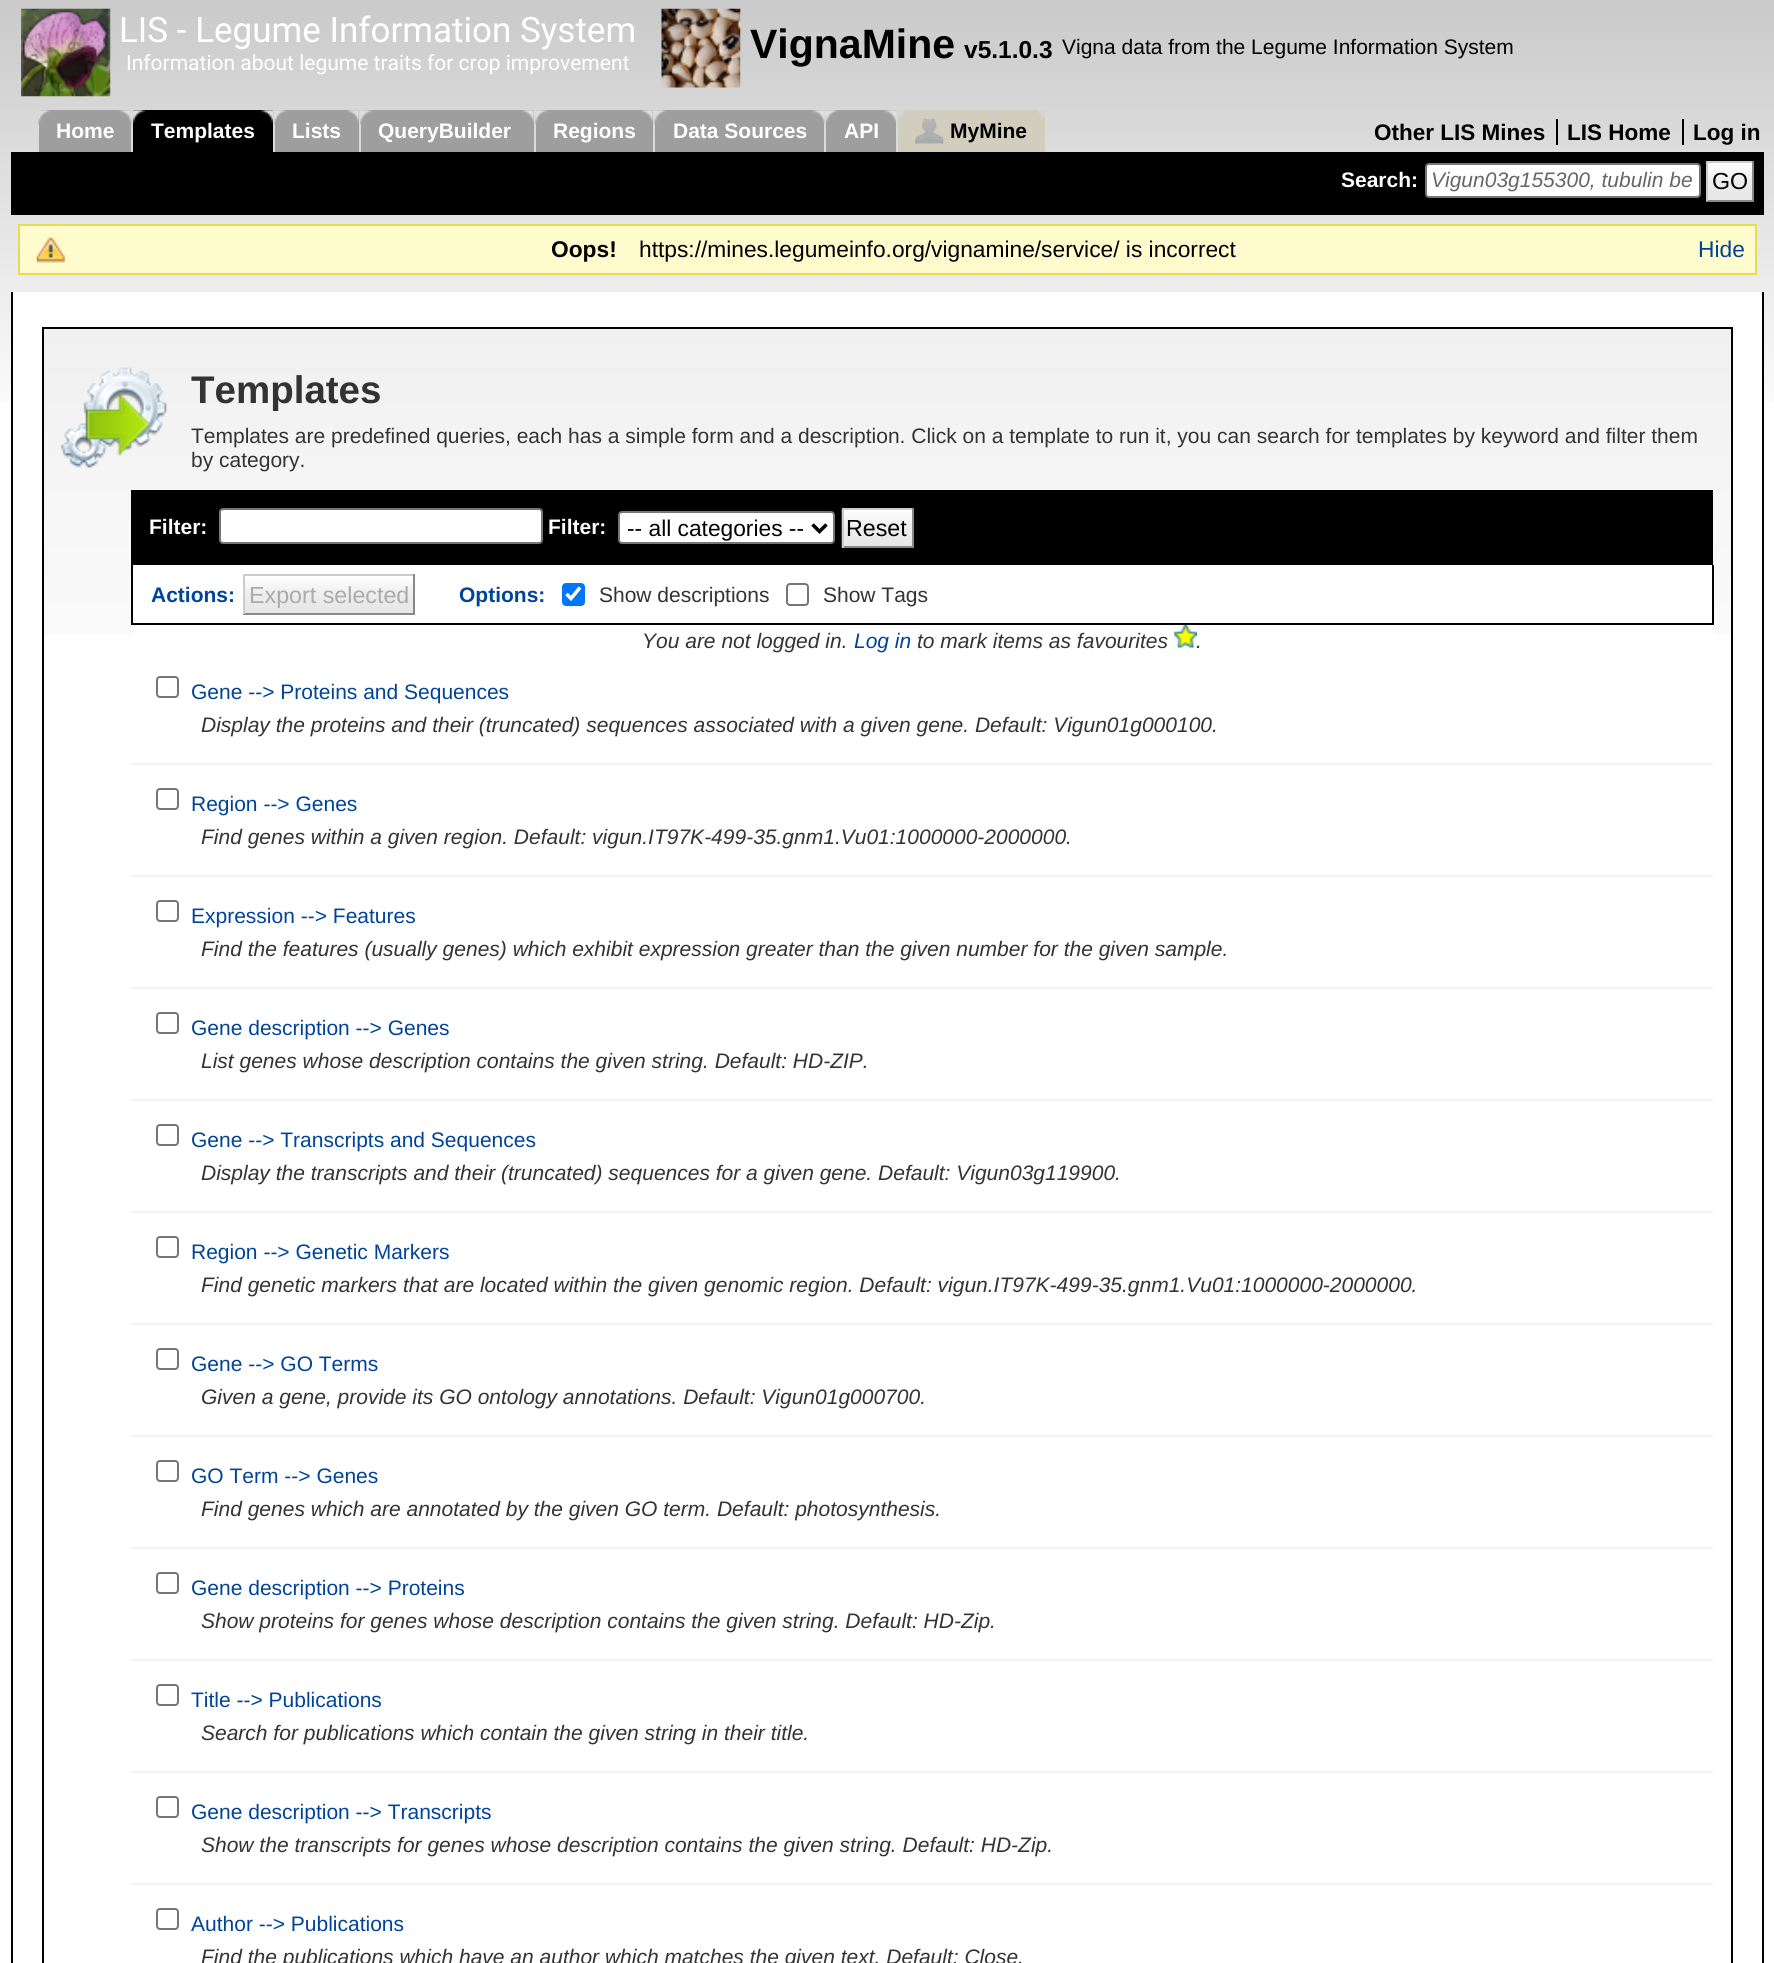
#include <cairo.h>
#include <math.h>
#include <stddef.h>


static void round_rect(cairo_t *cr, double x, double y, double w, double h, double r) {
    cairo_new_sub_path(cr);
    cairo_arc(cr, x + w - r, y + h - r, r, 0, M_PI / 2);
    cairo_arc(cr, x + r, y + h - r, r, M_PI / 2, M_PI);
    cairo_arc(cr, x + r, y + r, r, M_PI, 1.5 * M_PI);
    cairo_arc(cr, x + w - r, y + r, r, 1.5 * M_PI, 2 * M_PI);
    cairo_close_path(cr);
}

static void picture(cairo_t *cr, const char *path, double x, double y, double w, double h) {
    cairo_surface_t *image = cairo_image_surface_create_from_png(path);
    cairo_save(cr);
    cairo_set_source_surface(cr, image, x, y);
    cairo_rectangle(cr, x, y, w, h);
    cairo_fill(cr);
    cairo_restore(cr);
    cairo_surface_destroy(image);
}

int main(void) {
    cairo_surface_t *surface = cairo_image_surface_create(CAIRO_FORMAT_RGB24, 1774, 1963);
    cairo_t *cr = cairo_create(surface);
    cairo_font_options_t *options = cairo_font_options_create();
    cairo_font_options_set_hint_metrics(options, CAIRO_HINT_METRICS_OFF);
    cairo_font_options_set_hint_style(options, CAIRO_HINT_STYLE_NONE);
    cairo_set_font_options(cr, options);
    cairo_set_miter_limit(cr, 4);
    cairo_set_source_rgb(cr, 1, 1, 1);
    cairo_paint(cr);
    picture(cr, "img1.png", 0, 0, 1774, 402);
    picture(cr, "img2.png", 21, 8, 90, 89);
    cairo_select_font_face(cr, "Roboto", CAIRO_FONT_SLANT_NORMAL, CAIRO_FONT_WEIGHT_NORMAL);
    cairo_set_font_size(cr, 35);
    cairo_set_source_rgb(cr, 1, 1, 1);
    cairo_move_to(cr, 119, 42);
    cairo_show_text(cr, "LIS - Legume Information System");
    cairo_set_font_size(cr, 21);
    cairo_move_to(cr, 126, 70);
    cairo_show_text(cr, "Information about legume traits for crop improvement");
    picture(cr, "img3.png", 661, 8, 80, 80);
    cairo_select_font_face(cr, "Liberation Sans", CAIRO_FONT_SLANT_NORMAL, CAIRO_FONT_WEIGHT_BOLD);
    cairo_set_font_size(cr, 41);
    cairo_set_source_rgb(cr, 0, 0, 0);
    cairo_move_to(cr, 750, 58);
    cairo_show_text(cr, "VignaMine");
    cairo_set_font_size(cr, 24.5);
    cairo_move_to(cr, 964, 58);
    cairo_show_text(cr, "v5.1.0.3");
    cairo_select_font_face(cr, "Liberation Sans", CAIRO_FONT_SLANT_NORMAL, CAIRO_FONT_WEIGHT_NORMAL);
    cairo_set_font_size(cr, 21);
    cairo_move_to(cr, 1062, 54);
    cairo_show_text(cr, "Vigna data from the Legume Information System");
    cairo_set_source_rgb(cr, 0.62, 0.62, 0.62);
    cairo_rectangle(cr, 39, 110, 92, 42);
    cairo_fill(cr);
    picture(cr, "img4.png", 38, 110, 13, 15);
    picture(cr, "img5.png", 119, 110, 13, 14);
    cairo_select_font_face(cr, "Liberation Sans", CAIRO_FONT_SLANT_NORMAL, CAIRO_FONT_WEIGHT_BOLD);
    cairo_set_source_rgb(cr, 1, 1, 1);
    cairo_move_to(cr, 56, 138);
    cairo_show_text(cr, "Home");
    cairo_set_source_rgb(cr, 0, 0, 0);
    cairo_rectangle(cr, 133, 110, 140, 42);
    cairo_fill(cr);
    picture(cr, "img6.png", 133, 110, 13, 13);
    picture(cr, "img7.png", 260, 110, 13, 13);
    cairo_set_source_rgb(cr, 1, 1, 1);
    cairo_move_to(cr, 151, 138);
    cairo_show_text(cr, "Templates");
    cairo_set_source_rgb(cr, 0.62, 0.62, 0.62);
    cairo_rectangle(cr, 275, 110, 84, 42);
    cairo_fill(cr);
    picture(cr, "img8.png", 274, 110, 13, 14);
    picture(cr, "img9.png", 347, 110, 12, 13);
    cairo_set_source_rgb(cr, 1, 1, 1);
    cairo_move_to(cr, 292, 138);
    cairo_show_text(cr, "Lists");
    cairo_set_source_rgb(cr, 0.62, 0.62, 0.62);
    cairo_rectangle(cr, 361, 110, 173, 42);
    cairo_fill(cr);
    picture(cr, "img4.png", 360, 110, 13, 15);
    picture(cr, "img9.png", 522, 110, 12, 13);
    cairo_set_source_rgb(cr, 1, 1, 1);
    cairo_move_to(cr, 378, 138);
    cairo_show_text(cr, "QueryBuilder");
    cairo_set_source_rgb(cr, 0.62, 0.62, 0.62);
    cairo_rectangle(cr, 536, 110, 117, 42);
    cairo_fill(cr);
    picture(cr, "img4.png", 535, 110, 13, 15);
    picture(cr, "img9.png", 641, 110, 12, 13);
    cairo_set_source_rgb(cr, 1, 1, 1);
    cairo_move_to(cr, 553, 138);
    cairo_show_text(cr, "Regions");
    cairo_set_source_rgb(cr, 0.62, 0.62, 0.62);
    cairo_rectangle(cr, 655, 110, 169, 42);
    cairo_fill(cr);
    picture(cr, "img10.png", 654, 110, 13, 15);
    picture(cr, "img11.png", 812, 110, 13, 14);
    cairo_set_source_rgb(cr, 1, 1, 1);
    cairo_move_to(cr, 673, 138);
    cairo_show_text(cr, "Data Sources");
    cairo_set_source_rgb(cr, 0.62, 0.62, 0.62);
    cairo_rectangle(cr, 826, 110, 70, 42);
    cairo_fill(cr);
    picture(cr, "img12.png", 826, 110, 12, 13);
    picture(cr, "img13.png", 884, 110, 12, 13);
    cairo_set_source_rgb(cr, 1, 1, 1);
    cairo_move_to(cr, 844, 138);
    cairo_show_text(cr, "API");
    cairo_set_source_rgb(cr, 0.824, 0.808, 0.749);
    cairo_rectangle(cr, 898, 110, 147, 42);
    cairo_fill(cr);
    picture(cr, "img14.png", 897, 110, 8, 14);
    picture(cr, "img15.png", 1037, 110, 8, 8);
    picture(cr, "img16.png", 915, 119, 29, 25);
    cairo_set_source_rgb(cr, 0, 0, 0);
    cairo_move_to(cr, 950, 138);
    cairo_show_text(cr, "MyMine");
    cairo_rectangle(cr, 1556, 119, 2, 26);
    cairo_fill(cr);
    cairo_set_font_size(cr, 22.5);
    cairo_move_to(cr, 1374, 140);
    cairo_show_text(cr, "Other LIS Mines");
    cairo_rectangle(cr, 1682, 119, 2, 26);
    cairo_fill(cr);
    cairo_move_to(cr, 1567, 140);
    cairo_show_text(cr, "LIS Home");
    cairo_move_to(cr, 1693, 140);
    cairo_show_text(cr, "Log in");
    cairo_rectangle(cr, 11, 152, 1753, 63);
    cairo_fill(cr);
    cairo_set_font_size(cr, 21);
    cairo_set_source_rgb(cr, 1, 1, 1);
    cairo_move_to(cr, 1341, 187);
    cairo_show_text(cr, "Search:");
    round_rect(cr, 1426, 164, 274, 33, 3);
    cairo_fill_preserve(cr);
    cairo_set_source_rgb(cr, 0.463, 0.463, 0.463);
    cairo_stroke(cr);
    cairo_select_font_face(cr, "Liberation Sans", CAIRO_FONT_SLANT_ITALIC, CAIRO_FONT_WEIGHT_NORMAL);
    cairo_set_source_rgb(cr, 0.4, 0.4, 0.4);
    cairo_move_to(cr, 1431, 187);
    cairo_show_text(cr, "Vigun03g155300, tubulin be");
    picture(cr, "img17.png", 1708, 163, 44, 37);
    cairo_set_source_rgb(cr, 0.8, 0.8, 0.8);
    cairo_rectangle(cr, 1706, 161, 48, 2);
    cairo_fill(cr);
    cairo_set_source_rgb(cr, 0.533, 0.533, 0.533);
    cairo_rectangle(cr, 1752, 161, 2, 40);
    cairo_fill(cr);
    cairo_rectangle(cr, 1706, 200, 48, 2);
    cairo_fill(cr);
    cairo_set_source_rgb(cr, 0.8, 0.8, 0.8);
    cairo_rectangle(cr, 1706, 161, 2, 40);
    cairo_fill(cr);
    cairo_select_font_face(cr, "Liberation Sans", CAIRO_FONT_SLANT_NORMAL, CAIRO_FONT_WEIGHT_NORMAL);
    cairo_set_font_size(cr, 23.25);
    cairo_set_source_rgb(cr, 0, 0, 0);
    cairo_move_to(cr, 1712, 189);
    cairo_show_text(cr, "GO");
    cairo_set_source_rgb(cr, 1, 0.984, 0.8);
    cairo_rectangle(cr, 20, 226, 1735, 47);
    cairo_fill(cr);
    picture(cr, "img18.png", 36, 237, 29, 26);
    cairo_rectangle(cr, 19, 225, 1737, 49);
    cairo_set_source_rgb(cr, 0.902, 0.859, 0.333);
    cairo_stroke(cr);
    cairo_select_font_face(cr, "Liberation Sans", CAIRO_FONT_SLANT_NORMAL, CAIRO_FONT_WEIGHT_BOLD);
    cairo_set_font_size(cr, 22.75);
    cairo_set_source_rgb(cr, 0, 0, 0);
    cairo_move_to(cr, 551, 257);
    cairo_show_text(cr, "Oops!");
    cairo_select_font_face(cr, "Liberation Sans", CAIRO_FONT_SLANT_NORMAL, CAIRO_FONT_WEIGHT_NORMAL);
    cairo_move_to(cr, 639, 257);
    cairo_show_text(cr, "https://mines.legumeinfo.org/vignamine/service/ is incorrect");
    cairo_set_source_rgb(cr, 0, 0.267, 0.6);
    cairo_move_to(cr, 1698, 257);
    cairo_show_text(cr, "Hide");
    cairo_set_source_rgb(cr, 1, 1, 1);
    cairo_rectangle(cr, 13, 292, 1749, 110);
    cairo_fill(cr);
    cairo_set_source_rgb(cr, 0, 0, 0);
    cairo_rectangle(cr, 1762, 292, 2, 1671);
    cairo_fill(cr);
    cairo_rectangle(cr, 11, 292, 2, 1671);
    cairo_fill(cr);
    picture(cr, "img19.png", 44, 329, 1687, 306);
    cairo_rectangle(cr, 43, 328, 1689, 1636);
    cairo_stroke(cr);
    picture(cr, "img20.png", 61, 367, 106, 101);
    cairo_select_font_face(cr, "Liberation Sans", CAIRO_FONT_SLANT_NORMAL, CAIRO_FONT_WEIGHT_BOLD);
    cairo_set_font_size(cr, 38.5);
    cairo_set_source_rgb(cr, 0.2, 0.2, 0.2);
    cairo_move_to(cr, 191, 403);
    cairo_show_text(cr, "Templates");
    cairo_select_font_face(cr, "Liberation Sans", CAIRO_FONT_SLANT_NORMAL, CAIRO_FONT_WEIGHT_NORMAL);
    cairo_set_font_size(cr, 21);
    cairo_move_to(cr, 191, 443);
    cairo_show_text(cr, "Templates are predefined queries, each has a simple form and a description. Click on a template to run it, you can search for templates by keyword and filter them");
    cairo_move_to(cr, 191, 467);
    cairo_show_text(cr, "by category.");
    cairo_set_source_rgb(cr, 0, 0, 0);
    cairo_rectangle(cr, 131, 490, 1582, 75);
    cairo_fill(cr);
    cairo_select_font_face(cr, "Liberation Sans", CAIRO_FONT_SLANT_NORMAL, CAIRO_FONT_WEIGHT_BOLD);
    cairo_set_source_rgb(cr, 1, 1, 1);
    cairo_move_to(cr, 149, 534);
    cairo_show_text(cr, "Filter:");
    round_rect(cr, 220, 509, 322, 34, 3);
    cairo_fill_preserve(cr);
    cairo_set_source_rgb(cr, 0.463, 0.463, 0.463);
    cairo_stroke(cr);
    cairo_set_source_rgb(cr, 1, 1, 1);
    cairo_move_to(cr, 548, 534);
    cairo_show_text(cr, "Filter:");
    round_rect(cr, 619, 512, 215, 31, 3);
    cairo_fill_preserve(cr);
    cairo_set_source_rgb(cr, 0.463, 0.463, 0.463);
    cairo_stroke(cr);
    cairo_new_path(cr);
    cairo_move_to(cr, 812.5, 524.5);
    cairo_line_to(cr, 819.5, 531.5);
    cairo_line_to(cr, 826.5, 524.5);
    cairo_set_source_rgb(cr, 0, 0, 0);
    cairo_set_line_width(cr, 3.5);
    cairo_stroke(cr);
    cairo_select_font_face(cr, "Liberation Sans", CAIRO_FONT_SLANT_NORMAL, CAIRO_FONT_WEIGHT_NORMAL);
    cairo_set_font_size(cr, 22.75);
    cairo_move_to(cr, 627, 536);
    cairo_show_text(cr, "-- all categories --");
    picture(cr, "img21.png", 841, 509, 71, 39);
    cairo_set_source_rgb(cr, 0.8, 0.8, 0.8);
    cairo_rectangle(cr, 842, 508, 72, 2);
    cairo_fill(cr);
    cairo_set_source_rgb(cr, 0.533, 0.533, 0.533);
    cairo_rectangle(cr, 912, 508, 2, 40);
    cairo_fill(cr);
    cairo_rectangle(cr, 842, 546, 72, 2);
    cairo_fill(cr);
    cairo_set_source_rgb(cr, 0.8, 0.8, 0.8);
    cairo_rectangle(cr, 842, 508, 2, 40);
    cairo_fill(cr);
    cairo_set_font_size(cr, 23.25);
    cairo_set_source_rgb(cr, 0, 0, 0);
    cairo_move_to(cr, 846, 536);
    cairo_show_text(cr, "Reset");
    cairo_set_source_rgb(cr, 1, 1, 1);
    cairo_rectangle(cr, 133, 565, 1579, 58);
    cairo_fill(cr);
    cairo_set_source_rgb(cr, 0, 0, 0);
    cairo_rectangle(cr, 1712, 565, 2, 60);
    cairo_fill(cr);
    cairo_rectangle(cr, 131, 623, 1582, 2);
    cairo_fill(cr);
    cairo_rectangle(cr, 131, 565, 2, 60);
    cairo_fill(cr);
    cairo_select_font_face(cr, "Liberation Sans", CAIRO_FONT_SLANT_NORMAL, CAIRO_FONT_WEIGHT_BOLD);
    cairo_set_font_size(cr, 21);
    cairo_set_source_rgb(cr, 0, 0.267, 0.6);
    cairo_move_to(cr, 151, 602);
    cairo_show_text(cr, "Actions:");
    picture(cr, "img22.png", 245, 576, 168, 37);
    cairo_set_source_rgb(cr, 0.8, 0.8, 0.8);
    cairo_rectangle(cr, 243, 574, 172, 2);
    cairo_fill(cr);
    cairo_set_source_rgb(cr, 0.533, 0.533, 0.533);
    cairo_rectangle(cr, 413, 574, 2, 40);
    cairo_fill(cr);
    cairo_rectangle(cr, 243, 613, 172, 2);
    cairo_fill(cr);
    cairo_set_source_rgb(cr, 0.8, 0.8, 0.8);
    cairo_rectangle(cr, 243, 574, 2, 40);
    cairo_fill(cr);
    cairo_select_font_face(cr, "Liberation Sans", CAIRO_FONT_SLANT_NORMAL, CAIRO_FONT_WEIGHT_NORMAL);
    cairo_set_font_size(cr, 23.25);
    cairo_set_source_rgb(cr, 0.671, 0.671, 0.671);
    cairo_move_to(cr, 249, 603);
    cairo_show_text(cr, "Export selected");
    cairo_select_font_face(cr, "Liberation Sans", CAIRO_FONT_SLANT_NORMAL, CAIRO_FONT_WEIGHT_BOLD);
    cairo_set_font_size(cr, 21);
    cairo_set_source_rgb(cr, 0, 0.267, 0.6);
    cairo_move_to(cr, 459, 602);
    cairo_show_text(cr, "Options:");
    cairo_set_source_rgb(cr, 0, 0.459, 1);
    round_rect(cr, 562, 583, 23, 23, 4);
    cairo_fill(cr);
    cairo_new_path(cr);
    cairo_move_to(cr, 566.5, 594);
    cairo_line_to(cr, 571, 598.5);
    cairo_line_to(cr, 580, 587.5);
    cairo_set_source_rgb(cr, 1, 1, 1);
    cairo_set_line_width(cr, 3.6);
    cairo_stroke(cr);
    cairo_select_font_face(cr, "Liberation Sans", CAIRO_FONT_SLANT_NORMAL, CAIRO_FONT_WEIGHT_NORMAL);
    cairo_set_source_rgb(cr, 0.2, 0.2, 0.2);
    cairo_move_to(cr, 599, 602);
    cairo_show_text(cr, "Show descriptions");
    round_rect(cr, 787, 584, 21, 21, 3);
    cairo_set_source_rgb(cr, 0.463, 0.463, 0.463);
    cairo_set_line_width(cr, 2);
    cairo_stroke(cr);
    cairo_set_source_rgb(cr, 0.2, 0.2, 0.2);
    cairo_move_to(cr, 823, 602);
    cairo_show_text(cr, "Show Tags");
    cairo_set_source_rgb(cr, 1, 1, 1);
    cairo_rectangle(cr, 131, 625, 1582, 10);
    cairo_fill(cr);
    cairo_select_font_face(cr, "Liberation Sans", CAIRO_FONT_SLANT_ITALIC, CAIRO_FONT_WEIGHT_NORMAL);
    cairo_set_source_rgb(cr, 0.2, 0.2, 0.2);
    cairo_move_to(cr, 642, 648);
    cairo_show_text(cr, "You are not logged in.");
    cairo_set_source_rgb(cr, 0, 0.267, 0.6);
    cairo_move_to(cr, 854, 648);
    cairo_show_text(cr, "Log in");
    cairo_set_source_rgb(cr, 0.2, 0.2, 0.2);
    cairo_move_to(cr, 917, 648);
    cairo_show_text(cr, "to mark items as favourites");
    picture(cr, "img23.png", 1174, 624, 23, 24);
    cairo_move_to(cr, 1196, 648);
    cairo_show_text(cr, ".");
    cairo_set_source_rgb(cr, 0.961, 0.941, 1);
    cairo_rectangle(cr, 131, 763, 1582, 2);
    cairo_fill(cr);
    round_rect(cr, 157, 677, 21, 20, 3);
    cairo_set_source_rgb(cr, 0.463, 0.463, 0.463);
    cairo_stroke(cr);
    cairo_select_font_face(cr, "Liberation Sans", CAIRO_FONT_SLANT_NORMAL, CAIRO_FONT_WEIGHT_NORMAL);
    cairo_set_source_rgb(cr, 0, 0.267, 0.6);
    cairo_move_to(cr, 191, 699);
    cairo_show_text(cr, "Gene --> Proteins and Sequences");
    cairo_select_font_face(cr, "Liberation Sans", CAIRO_FONT_SLANT_ITALIC, CAIRO_FONT_WEIGHT_NORMAL);
    cairo_set_source_rgb(cr, 0.2, 0.2, 0.2);
    cairo_move_to(cr, 201, 732);
    cairo_show_text(cr, "Display the proteins and their (truncated) sequences associated with a given gene. Default: Vigun01g000100.");
    cairo_set_source_rgb(cr, 0.961, 0.941, 1);
    cairo_rectangle(cr, 131, 875, 1582, 2);
    cairo_fill(cr);
    round_rect(cr, 157, 789, 21, 20, 3);
    cairo_set_source_rgb(cr, 0.463, 0.463, 0.463);
    cairo_stroke(cr);
    cairo_select_font_face(cr, "Liberation Sans", CAIRO_FONT_SLANT_NORMAL, CAIRO_FONT_WEIGHT_NORMAL);
    cairo_set_source_rgb(cr, 0, 0.267, 0.6);
    cairo_move_to(cr, 191, 811);
    cairo_show_text(cr, "Region --> Genes");
    cairo_select_font_face(cr, "Liberation Sans", CAIRO_FONT_SLANT_ITALIC, CAIRO_FONT_WEIGHT_NORMAL);
    cairo_set_source_rgb(cr, 0.2, 0.2, 0.2);
    cairo_move_to(cr, 201, 844);
    cairo_show_text(cr, "Find genes within a given region. Default: vigun.IT97K-499-35.gnm1.Vu01:1000000-2000000.");
    cairo_set_source_rgb(cr, 0.961, 0.941, 1);
    cairo_rectangle(cr, 131, 987, 1582, 2);
    cairo_fill(cr);
    round_rect(cr, 157, 901, 21, 20, 3);
    cairo_set_source_rgb(cr, 0.463, 0.463, 0.463);
    cairo_stroke(cr);
    cairo_select_font_face(cr, "Liberation Sans", CAIRO_FONT_SLANT_NORMAL, CAIRO_FONT_WEIGHT_NORMAL);
    cairo_set_source_rgb(cr, 0, 0.267, 0.6);
    cairo_move_to(cr, 191, 923);
    cairo_show_text(cr, "Expression --> Features");
    cairo_select_font_face(cr, "Liberation Sans", CAIRO_FONT_SLANT_ITALIC, CAIRO_FONT_WEIGHT_NORMAL);
    cairo_set_source_rgb(cr, 0.2, 0.2, 0.2);
    cairo_move_to(cr, 201, 956);
    cairo_show_text(cr, "Find the features (usually genes) which exhibit expression greater than the given number for the given sample.");
    cairo_set_source_rgb(cr, 0.961, 0.941, 1);
    cairo_rectangle(cr, 131, 1099, 1582, 2);
    cairo_fill(cr);
    round_rect(cr, 157, 1013, 21, 20, 3);
    cairo_set_source_rgb(cr, 0.463, 0.463, 0.463);
    cairo_stroke(cr);
    cairo_select_font_face(cr, "Liberation Sans", CAIRO_FONT_SLANT_NORMAL, CAIRO_FONT_WEIGHT_NORMAL);
    cairo_set_source_rgb(cr, 0, 0.267, 0.6);
    cairo_move_to(cr, 191, 1035);
    cairo_show_text(cr, "Gene description --> Genes");
    cairo_select_font_face(cr, "Liberation Sans", CAIRO_FONT_SLANT_ITALIC, CAIRO_FONT_WEIGHT_NORMAL);
    cairo_set_source_rgb(cr, 0.2, 0.2, 0.2);
    cairo_move_to(cr, 201, 1068);
    cairo_show_text(cr, "List genes whose description contains the given string. Default: HD-ZIP.");
    cairo_set_source_rgb(cr, 0.961, 0.941, 1);
    cairo_rectangle(cr, 131, 1211, 1582, 2);
    cairo_fill(cr);
    round_rect(cr, 157, 1125, 21, 20, 3);
    cairo_set_source_rgb(cr, 0.463, 0.463, 0.463);
    cairo_stroke(cr);
    cairo_select_font_face(cr, "Liberation Sans", CAIRO_FONT_SLANT_NORMAL, CAIRO_FONT_WEIGHT_NORMAL);
    cairo_set_source_rgb(cr, 0, 0.267, 0.6);
    cairo_move_to(cr, 191, 1147);
    cairo_show_text(cr, "Gene --> Transcripts and Sequences");
    cairo_select_font_face(cr, "Liberation Sans", CAIRO_FONT_SLANT_ITALIC, CAIRO_FONT_WEIGHT_NORMAL);
    cairo_set_source_rgb(cr, 0.2, 0.2, 0.2);
    cairo_move_to(cr, 201, 1180);
    cairo_show_text(cr, "Display the transcripts and their (truncated) sequences for a given gene. Default: Vigun03g119900.");
    cairo_set_source_rgb(cr, 0.961, 0.941, 1);
    cairo_rectangle(cr, 131, 1323, 1582, 2);
    cairo_fill(cr);
    round_rect(cr, 157, 1237, 21, 20, 3);
    cairo_set_source_rgb(cr, 0.463, 0.463, 0.463);
    cairo_stroke(cr);
    cairo_select_font_face(cr, "Liberation Sans", CAIRO_FONT_SLANT_NORMAL, CAIRO_FONT_WEIGHT_NORMAL);
    cairo_set_source_rgb(cr, 0, 0.267, 0.6);
    cairo_move_to(cr, 191, 1259);
    cairo_show_text(cr, "Region --> Genetic Markers");
    cairo_select_font_face(cr, "Liberation Sans", CAIRO_FONT_SLANT_ITALIC, CAIRO_FONT_WEIGHT_NORMAL);
    cairo_set_source_rgb(cr, 0.2, 0.2, 0.2);
    cairo_move_to(cr, 201, 1292);
    cairo_show_text(cr, "Find genetic markers that are located within the given genomic region. Default: vigun.IT97K-499-35.gnm1.Vu01:1000000-2000000.");
    cairo_set_source_rgb(cr, 0.961, 0.941, 1);
    cairo_rectangle(cr, 131, 1435, 1582, 2);
    cairo_fill(cr);
    round_rect(cr, 157, 1349, 21, 20, 3);
    cairo_set_source_rgb(cr, 0.463, 0.463, 0.463);
    cairo_stroke(cr);
    cairo_select_font_face(cr, "Liberation Sans", CAIRO_FONT_SLANT_NORMAL, CAIRO_FONT_WEIGHT_NORMAL);
    cairo_set_source_rgb(cr, 0, 0.267, 0.6);
    cairo_move_to(cr, 191, 1371);
    cairo_show_text(cr, "Gene --> GO Terms");
    cairo_select_font_face(cr, "Liberation Sans", CAIRO_FONT_SLANT_ITALIC, CAIRO_FONT_WEIGHT_NORMAL);
    cairo_set_source_rgb(cr, 0.2, 0.2, 0.2);
    cairo_move_to(cr, 201, 1404);
    cairo_show_text(cr, "Given a gene, provide its GO ontology annotations. Default: Vigun01g000700.");
    cairo_set_source_rgb(cr, 0.961, 0.941, 1);
    cairo_rectangle(cr, 131, 1547, 1582, 2);
    cairo_fill(cr);
    round_rect(cr, 157, 1461, 21, 20, 3);
    cairo_set_source_rgb(cr, 0.463, 0.463, 0.463);
    cairo_stroke(cr);
    cairo_select_font_face(cr, "Liberation Sans", CAIRO_FONT_SLANT_NORMAL, CAIRO_FONT_WEIGHT_NORMAL);
    cairo_set_source_rgb(cr, 0, 0.267, 0.6);
    cairo_move_to(cr, 191, 1483);
    cairo_show_text(cr, "GO Term --> Genes");
    cairo_select_font_face(cr, "Liberation Sans", CAIRO_FONT_SLANT_ITALIC, CAIRO_FONT_WEIGHT_NORMAL);
    cairo_set_source_rgb(cr, 0.2, 0.2, 0.2);
    cairo_move_to(cr, 201, 1516);
    cairo_show_text(cr, "Find genes which are annotated by the given GO term. Default: photosynthesis.");
    cairo_set_source_rgb(cr, 0.961, 0.941, 1);
    cairo_rectangle(cr, 131, 1659, 1582, 2);
    cairo_fill(cr);
    round_rect(cr, 157, 1573, 21, 20, 3);
    cairo_set_source_rgb(cr, 0.463, 0.463, 0.463);
    cairo_stroke(cr);
    cairo_select_font_face(cr, "Liberation Sans", CAIRO_FONT_SLANT_NORMAL, CAIRO_FONT_WEIGHT_NORMAL);
    cairo_set_source_rgb(cr, 0, 0.267, 0.6);
    cairo_move_to(cr, 191, 1595);
    cairo_show_text(cr, "Gene description --> Proteins");
    cairo_select_font_face(cr, "Liberation Sans", CAIRO_FONT_SLANT_ITALIC, CAIRO_FONT_WEIGHT_NORMAL);
    cairo_set_source_rgb(cr, 0.2, 0.2, 0.2);
    cairo_move_to(cr, 201, 1628);
    cairo_show_text(cr, "Show proteins for genes whose description contains the given string. Default: HD-Zip.");
    cairo_set_source_rgb(cr, 0.961, 0.941, 1);
    cairo_rectangle(cr, 131, 1771, 1582, 2);
    cairo_fill(cr);
    round_rect(cr, 157, 1685, 21, 20, 3);
    cairo_set_source_rgb(cr, 0.463, 0.463, 0.463);
    cairo_stroke(cr);
    cairo_select_font_face(cr, "Liberation Sans", CAIRO_FONT_SLANT_NORMAL, CAIRO_FONT_WEIGHT_NORMAL);
    cairo_set_source_rgb(cr, 0, 0.267, 0.6);
    cairo_move_to(cr, 191, 1707);
    cairo_show_text(cr, "Title --> Publications");
    cairo_select_font_face(cr, "Liberation Sans", CAIRO_FONT_SLANT_ITALIC, CAIRO_FONT_WEIGHT_NORMAL);
    cairo_set_source_rgb(cr, 0.2, 0.2, 0.2);
    cairo_move_to(cr, 201, 1740);
    cairo_show_text(cr, "Search for publications which contain the given string in their title.");
    cairo_set_source_rgb(cr, 0.961, 0.941, 1);
    cairo_rectangle(cr, 131, 1883, 1582, 2);
    cairo_fill(cr);
    round_rect(cr, 157, 1797, 21, 20, 3);
    cairo_set_source_rgb(cr, 0.463, 0.463, 0.463);
    cairo_stroke(cr);
    cairo_select_font_face(cr, "Liberation Sans", CAIRO_FONT_SLANT_NORMAL, CAIRO_FONT_WEIGHT_NORMAL);
    cairo_set_source_rgb(cr, 0, 0.267, 0.6);
    cairo_move_to(cr, 191, 1819);
    cairo_show_text(cr, "Gene description --> Transcripts");
    cairo_select_font_face(cr, "Liberation Sans", CAIRO_FONT_SLANT_ITALIC, CAIRO_FONT_WEIGHT_NORMAL);
    cairo_set_source_rgb(cr, 0.2, 0.2, 0.2);
    cairo_move_to(cr, 201, 1852);
    cairo_show_text(cr, "Show the transcripts for genes whose description contains the given string. Default: HD-Zip.");
    round_rect(cr, 157, 1909, 21, 20, 3);
    cairo_set_source_rgb(cr, 0.463, 0.463, 0.463);
    cairo_stroke(cr);
    cairo_select_font_face(cr, "Liberation Sans", CAIRO_FONT_SLANT_NORMAL, CAIRO_FONT_WEIGHT_NORMAL);
    cairo_set_source_rgb(cr, 0, 0.267, 0.6);
    cairo_move_to(cr, 191, 1931);
    cairo_show_text(cr, "Author --> Publications");
    cairo_select_font_face(cr, "Liberation Sans", CAIRO_FONT_SLANT_ITALIC, CAIRO_FONT_WEIGHT_NORMAL);
    cairo_set_source_rgb(cr, 0.2, 0.2, 0.2);
    cairo_move_to(cr, 201, 1964);
    cairo_show_text(cr, "Find the publications which have an author which matches the given text. Default: Close.");
    cairo_surface_write_to_png(surface, "page.png");
    cairo_font_options_destroy(options);
    cairo_destroy(cr);
    cairo_surface_destroy(surface);
    return 0;
}
